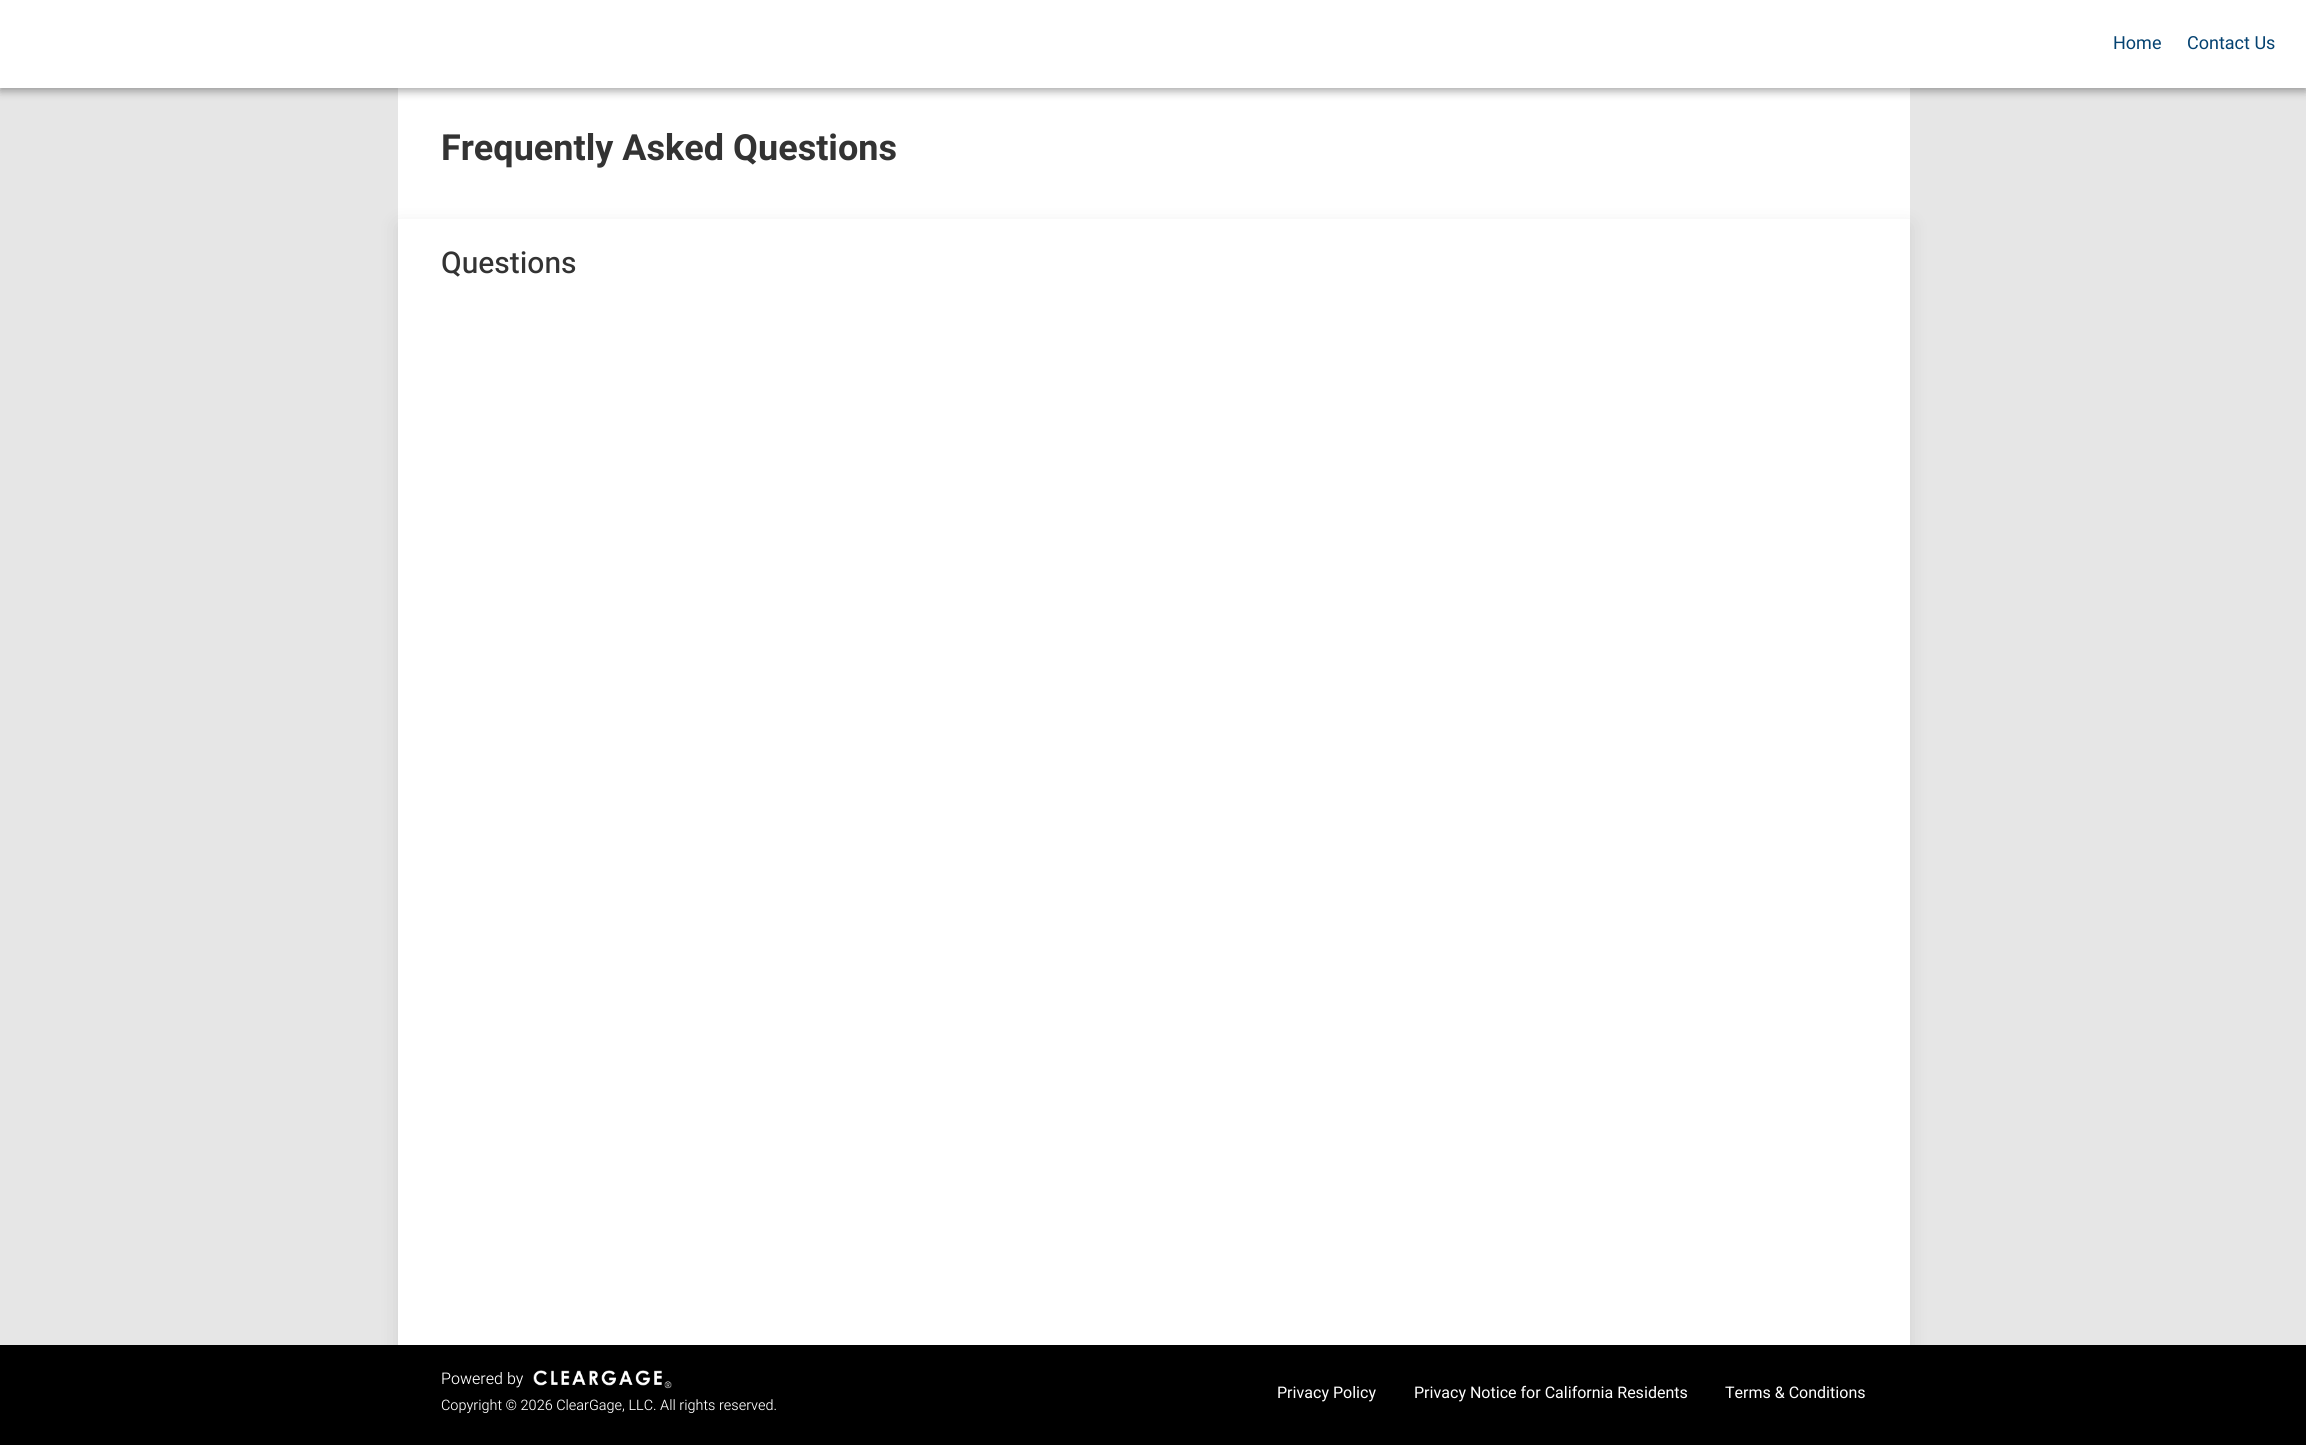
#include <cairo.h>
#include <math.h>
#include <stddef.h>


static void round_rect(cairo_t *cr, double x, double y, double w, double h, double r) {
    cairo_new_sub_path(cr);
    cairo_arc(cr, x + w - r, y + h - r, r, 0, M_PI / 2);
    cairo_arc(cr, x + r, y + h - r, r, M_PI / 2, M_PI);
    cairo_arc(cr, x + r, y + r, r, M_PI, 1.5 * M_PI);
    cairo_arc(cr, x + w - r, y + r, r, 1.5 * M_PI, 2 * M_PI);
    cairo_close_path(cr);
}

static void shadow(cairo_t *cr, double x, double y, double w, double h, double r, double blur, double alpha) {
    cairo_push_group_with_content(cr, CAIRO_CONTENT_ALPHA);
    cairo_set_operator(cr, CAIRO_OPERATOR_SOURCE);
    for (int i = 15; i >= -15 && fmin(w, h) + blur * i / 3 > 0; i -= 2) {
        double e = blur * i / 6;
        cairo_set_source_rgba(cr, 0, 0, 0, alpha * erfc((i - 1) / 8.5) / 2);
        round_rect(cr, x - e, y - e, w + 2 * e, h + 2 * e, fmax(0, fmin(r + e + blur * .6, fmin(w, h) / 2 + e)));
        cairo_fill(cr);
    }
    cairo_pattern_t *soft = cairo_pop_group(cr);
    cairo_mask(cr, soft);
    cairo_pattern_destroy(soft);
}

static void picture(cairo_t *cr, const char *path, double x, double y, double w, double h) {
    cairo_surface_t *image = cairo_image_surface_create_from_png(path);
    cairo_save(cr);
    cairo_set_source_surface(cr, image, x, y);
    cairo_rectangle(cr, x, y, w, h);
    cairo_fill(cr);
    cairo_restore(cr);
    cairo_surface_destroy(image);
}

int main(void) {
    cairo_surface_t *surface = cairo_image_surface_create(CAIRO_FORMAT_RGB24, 2306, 1445);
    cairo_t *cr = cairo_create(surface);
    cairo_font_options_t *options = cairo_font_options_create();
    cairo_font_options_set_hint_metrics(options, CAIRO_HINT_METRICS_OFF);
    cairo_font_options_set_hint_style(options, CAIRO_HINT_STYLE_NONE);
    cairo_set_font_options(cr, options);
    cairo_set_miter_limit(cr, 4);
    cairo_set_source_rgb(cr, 1, 1, 1);
    cairo_paint(cr);
    cairo_save(cr);
    cairo_set_fill_rule(cr, CAIRO_FILL_RULE_EVEN_ODD);
    cairo_new_path(cr);
    cairo_move_to(cr, 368, 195);
    cairo_line_to(cr, 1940, 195);
    cairo_line_to(cr, 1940, 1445);
    cairo_line_to(cr, 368, 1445);
    cairo_close_path(cr);
    cairo_move_to(cr, 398, 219);
    cairo_line_to(cr, 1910, 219);
    cairo_line_to(cr, 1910, 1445);
    cairo_line_to(cr, 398, 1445);
    cairo_close_path(cr);
    cairo_clip(cr);
    cairo_set_source_rgb(cr, 0, 0, 0);
    shadow(cr, 398, 225, 1512, 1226, 0, 9.5, 0.1);
    cairo_restore(cr);
    cairo_set_source_rgba(cr, 0, 0, 0, 0.1);
    cairo_rectangle(cr, 0, 88, 398, 131);
    cairo_fill(cr);
    cairo_rectangle(cr, 1910, 88, 396, 131);
    cairo_fill(cr);
    cairo_set_source_rgb(cr, 0, 0, 0);
    shadow(cr, 0, 4, 2306, 87, 0, 4.5, 0.35);
    cairo_set_source_rgb(cr, 1, 1, 1);
    cairo_rectangle(cr, 0, 0, 2306, 88);
    cairo_fill(cr);
    cairo_select_font_face(cr, "Heebo", CAIRO_FONT_SLANT_NORMAL, CAIRO_FONT_WEIGHT_NORMAL);
    cairo_set_font_size(cr, 18);
    cairo_set_source_rgb(cr, 0.016, 0.259, 0.443);
    cairo_move_to(cr, 2113, 49);
    cairo_show_text(cr, "Home");
    cairo_move_to(cr, 2187, 49);
    cairo_show_text(cr, "Contact Us");
    cairo_select_font_face(cr, "Heebo", CAIRO_FONT_SLANT_NORMAL, CAIRO_FONT_WEIGHT_BOLD);
    cairo_set_font_size(cr, 36);
    cairo_set_source_rgb(cr, 0.2, 0.2, 0.2);
    cairo_move_to(cr, 441, 160);
    cairo_show_text(cr, "Frequently Asked Questions");
    cairo_set_source_rgba(cr, 0, 0, 0, 0.1);
    cairo_rectangle(cr, 0, 219, 398, 1126);
    cairo_fill(cr);
    cairo_select_font_face(cr, "Heebo Medium", CAIRO_FONT_SLANT_NORMAL, CAIRO_FONT_WEIGHT_NORMAL);
    cairo_set_font_size(cr, 30);
    cairo_set_source_rgb(cr, 0.2, 0.2, 0.2);
    cairo_move_to(cr, 441, 273);
    cairo_show_text(cr, "Questions");
    cairo_set_source_rgba(cr, 0, 0, 0, 0.1);
    cairo_rectangle(cr, 1910, 219, 396, 1126);
    cairo_fill(cr);
    cairo_set_source_rgb(cr, 0, 0, 0);
    cairo_rectangle(cr, 0, 1345, 2306, 100);
    cairo_fill(cr);
    cairo_select_font_face(cr, "Heebo Light", CAIRO_FONT_SLANT_NORMAL, CAIRO_FONT_WEIGHT_NORMAL);
    cairo_set_font_size(cr, 16);
    cairo_set_source_rgb(cr, 1, 1, 1);
    cairo_move_to(cr, 441, 1384);
    cairo_show_text(cr, "Powered by");
    picture(cr, "img1.png", 533, 1370, 139, 19);
    cairo_select_font_face(cr, "Heebo", CAIRO_FONT_SLANT_NORMAL, CAIRO_FONT_WEIGHT_NORMAL);
    cairo_move_to(cr, 1277, 1398);
    cairo_show_text(cr, "Privacy Policy");
    cairo_move_to(cr, 1414, 1398);
    cairo_show_text(cr, "Privacy Notice for California Residents");
    cairo_move_to(cr, 1725, 1398);
    cairo_show_text(cr, "Terms & Conditions");
    cairo_select_font_face(cr, "Heebo Light", CAIRO_FONT_SLANT_NORMAL, CAIRO_FONT_WEIGHT_NORMAL);
    cairo_set_font_size(cr, 14.4);
    cairo_move_to(cr, 441, 1410);
    cairo_show_text(cr, "Copyright © 2026 ClearGage, LLC. All rights reserved.");
    cairo_surface_write_to_png(surface, "page.png");
    cairo_font_options_destroy(options);
    cairo_destroy(cr);
    cairo_surface_destroy(surface);
    return 0;
}
